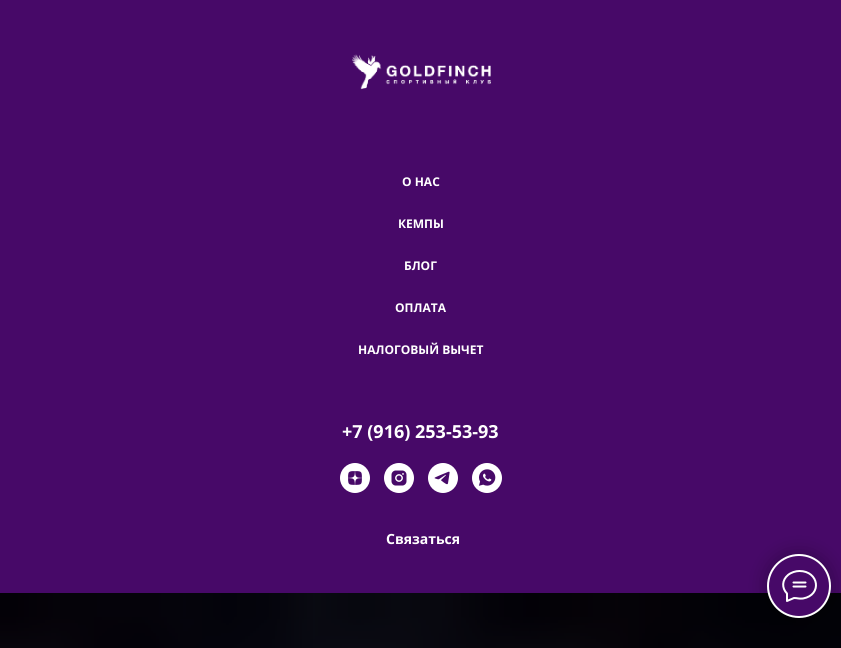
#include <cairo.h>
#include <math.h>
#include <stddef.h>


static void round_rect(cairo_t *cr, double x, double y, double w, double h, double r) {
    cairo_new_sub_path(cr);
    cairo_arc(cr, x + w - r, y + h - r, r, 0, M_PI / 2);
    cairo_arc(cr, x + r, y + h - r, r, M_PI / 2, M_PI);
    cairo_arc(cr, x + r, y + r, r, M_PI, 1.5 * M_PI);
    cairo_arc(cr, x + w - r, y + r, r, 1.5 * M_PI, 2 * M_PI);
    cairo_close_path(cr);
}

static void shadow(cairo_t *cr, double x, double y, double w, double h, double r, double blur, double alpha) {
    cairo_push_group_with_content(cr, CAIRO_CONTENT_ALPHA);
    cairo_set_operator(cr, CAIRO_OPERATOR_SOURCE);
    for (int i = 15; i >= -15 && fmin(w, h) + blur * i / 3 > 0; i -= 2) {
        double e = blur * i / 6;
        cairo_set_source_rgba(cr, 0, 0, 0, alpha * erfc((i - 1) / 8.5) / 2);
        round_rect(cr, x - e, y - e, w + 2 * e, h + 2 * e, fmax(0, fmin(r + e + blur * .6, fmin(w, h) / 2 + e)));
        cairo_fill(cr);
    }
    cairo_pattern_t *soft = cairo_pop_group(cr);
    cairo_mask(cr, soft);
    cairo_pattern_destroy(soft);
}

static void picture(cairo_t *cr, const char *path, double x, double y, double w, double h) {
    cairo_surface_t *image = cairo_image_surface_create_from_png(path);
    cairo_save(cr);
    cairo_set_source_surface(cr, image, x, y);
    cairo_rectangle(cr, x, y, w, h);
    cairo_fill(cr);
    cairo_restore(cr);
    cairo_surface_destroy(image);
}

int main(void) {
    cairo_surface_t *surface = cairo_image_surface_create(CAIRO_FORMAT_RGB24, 841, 648);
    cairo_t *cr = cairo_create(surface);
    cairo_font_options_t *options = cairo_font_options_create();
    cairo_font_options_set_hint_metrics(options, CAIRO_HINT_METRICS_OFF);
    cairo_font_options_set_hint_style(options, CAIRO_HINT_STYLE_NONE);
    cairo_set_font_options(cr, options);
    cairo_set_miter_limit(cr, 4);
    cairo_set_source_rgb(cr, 0.278, 0.039, 0.408);
    cairo_paint(cr);
    picture(cr, "img1.png", 352, 54, 139, 36);
    cairo_select_font_face(cr, "Open Sans", CAIRO_FONT_SLANT_NORMAL, CAIRO_FONT_WEIGHT_BOLD);
    cairo_set_font_size(cr, 12);
    cairo_set_source_rgb(cr, 1, 1, 1);
    cairo_move_to(cr, 402, 186);
    cairo_show_text(cr, "О НАС");
    cairo_move_to(cr, 398, 228);
    cairo_show_text(cr, "КЕМПЫ");
    cairo_move_to(cr, 404, 270);
    cairo_show_text(cr, "БЛОГ");
    cairo_move_to(cr, 395, 312);
    cairo_show_text(cr, "ОПЛАТА");
    cairo_move_to(cr, 358, 354);
    cairo_show_text(cr, "НАЛОГОВЫЙ ВЫЧЕТ");
    cairo_set_font_size(cr, 18);
    cairo_move_to(cr, 342, 438);
    cairo_show_text(cr, "+7 (916) 253-53-93");
    picture(cr, "img2.png", 340, 463, 30, 30);
    picture(cr, "img3.png", 384, 463, 30, 30);
    picture(cr, "img4.png", 428, 463, 30, 30);
    picture(cr, "img5.png", 472, 463, 30, 30);
    cairo_set_font_size(cr, 14);
    cairo_move_to(cr, 386, 544);
    cairo_show_text(cr, "Связаться");
    picture(cr, "img6.png", 0, 593, 841, 55);
    cairo_set_source_rgb(cr, 0, 0, 0);
    shadow(cr, 767, 554, 64, 64, 32, 10, 0.3);
    cairo_set_source_rgb(cr, 0.278, 0.039, 0.408);
    cairo_arc(cr, 799, 586, 31, 0, 2 * M_PI);
    cairo_fill_preserve(cr);
    cairo_set_source_rgb(cr, 1, 1, 1);
    cairo_stroke(cr);
    cairo_new_path(cr);
    cairo_move_to(cr, 793.5, 582.5);
    cairo_line_to(cr, 805.5, 582.5);
    cairo_move_to(cr, 793.5, 586.5);
    cairo_line_to(cr, 805.5, 586.5);
    cairo_move_to(cr, 787, 593.5);
    cairo_curve_to(cr, 781.5, 588, 782, 580, 788, 575);
    cairo_curve_to(cr, 791, 572.5, 795.5, 571, 799.5, 571);
    cairo_curve_to(cr, 819, 571, 822.5, 595, 803, 598.5);
    cairo_curve_to(cr, 799, 599, 797.5, 598, 794, 598);
    cairo_line_to(cr, 787, 601);
    cairo_line_to(cr, 787, 594);
    cairo_close_path(cr);
    cairo_set_line_cap(cr, CAIRO_LINE_CAP_ROUND);
    cairo_set_line_join(cr, CAIRO_LINE_JOIN_ROUND);
    cairo_stroke(cr);
    cairo_surface_write_to_png(surface, "page.png");
    cairo_font_options_destroy(options);
    cairo_destroy(cr);
    cairo_surface_destroy(surface);
    return 0;
}
